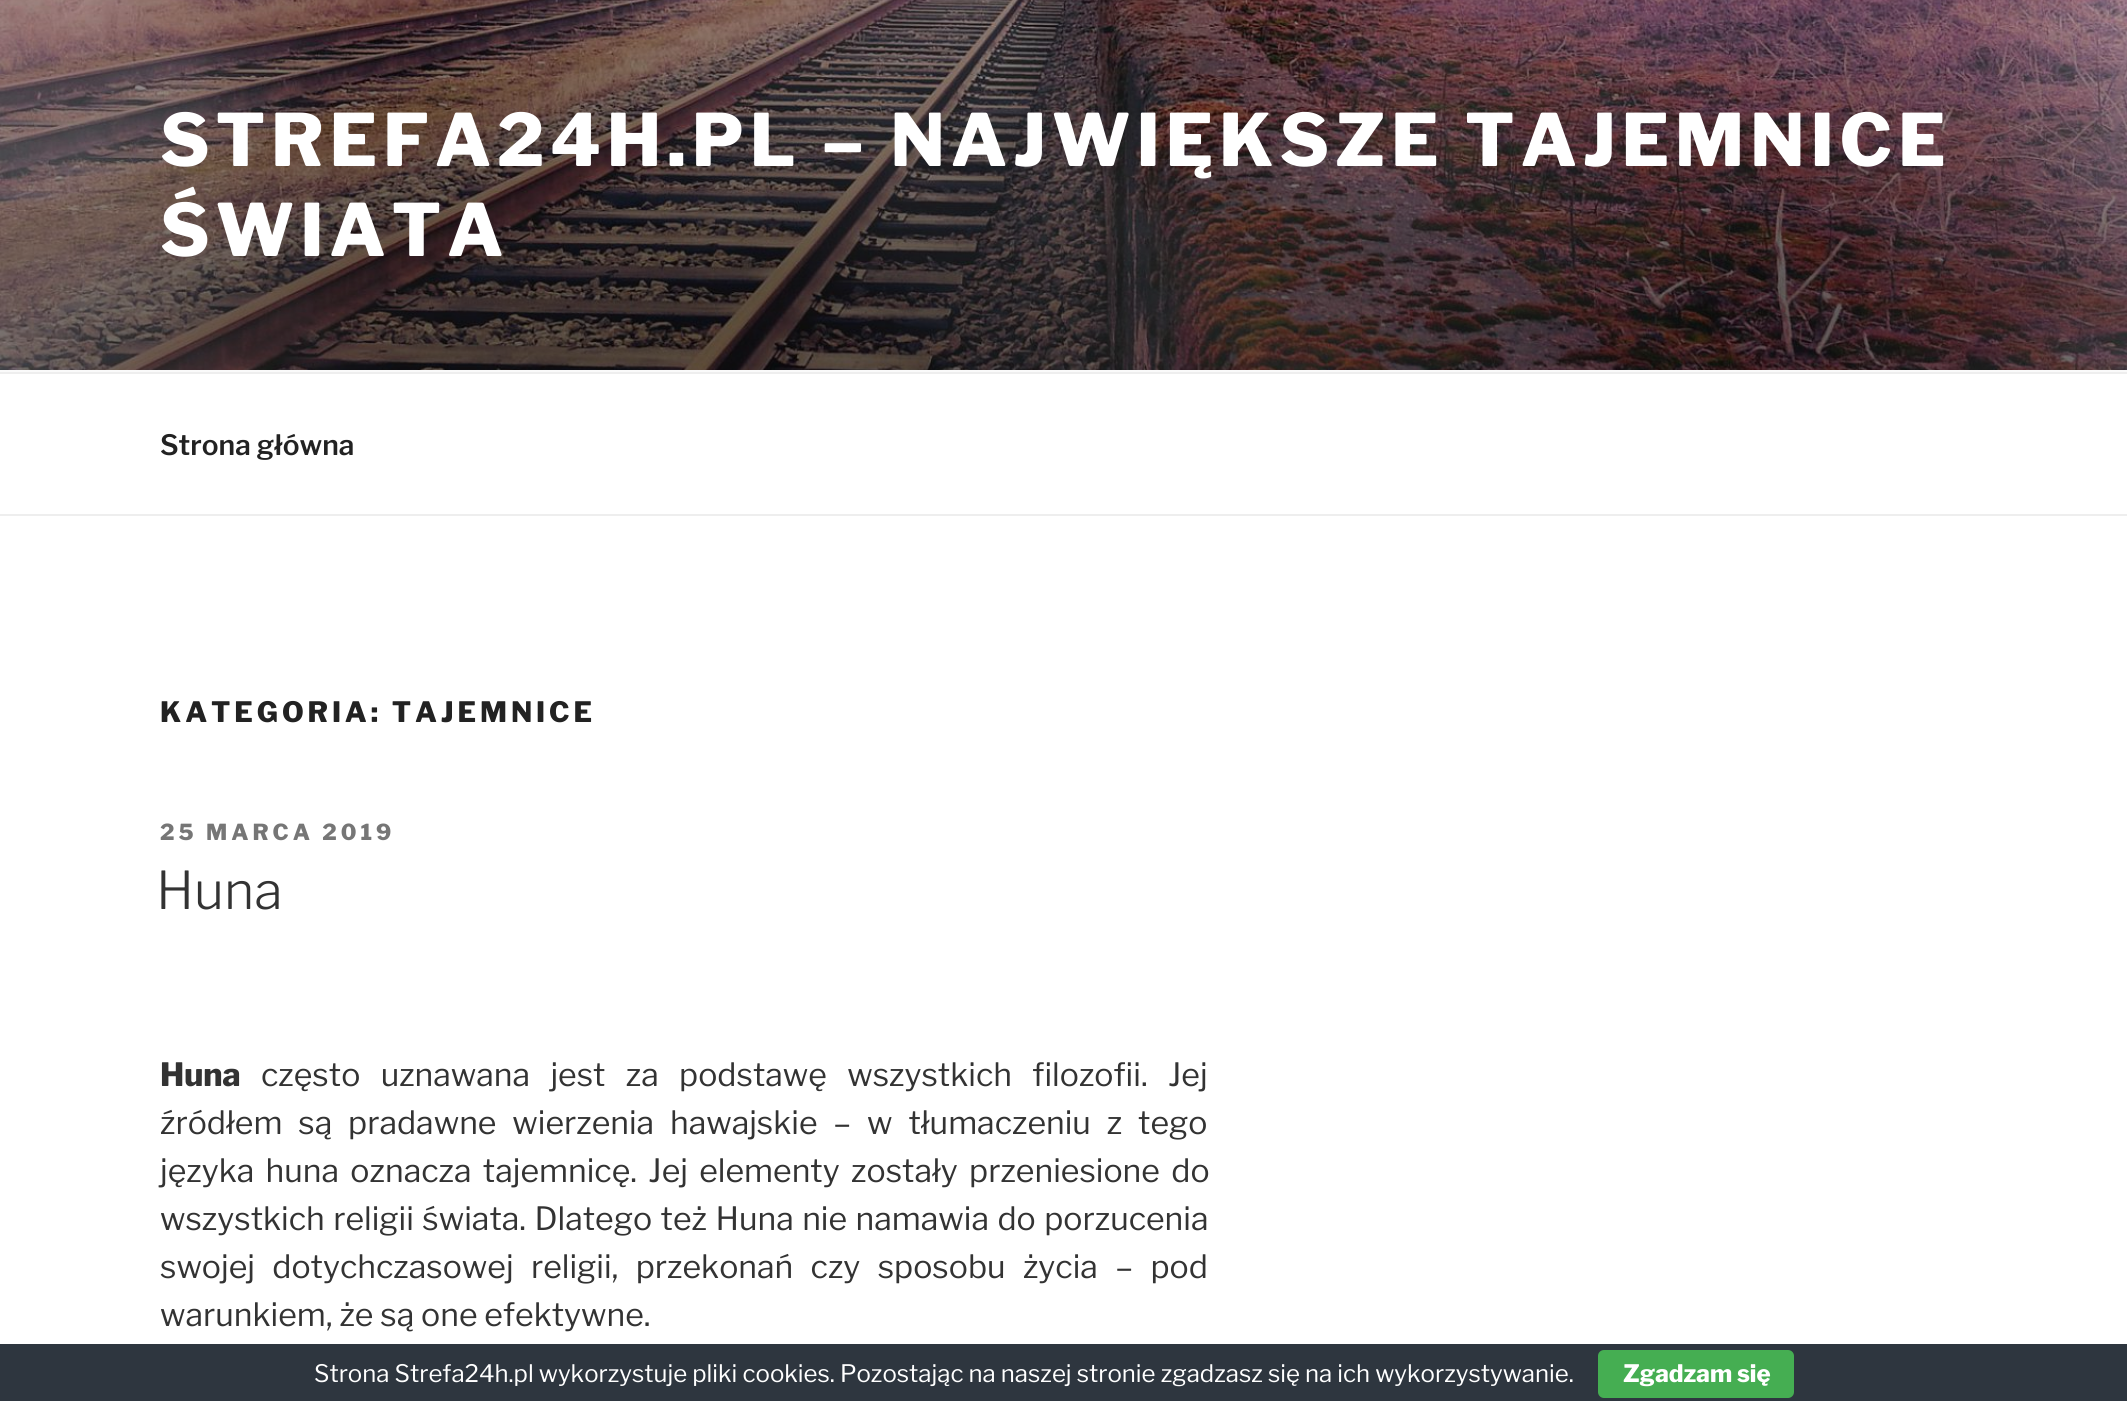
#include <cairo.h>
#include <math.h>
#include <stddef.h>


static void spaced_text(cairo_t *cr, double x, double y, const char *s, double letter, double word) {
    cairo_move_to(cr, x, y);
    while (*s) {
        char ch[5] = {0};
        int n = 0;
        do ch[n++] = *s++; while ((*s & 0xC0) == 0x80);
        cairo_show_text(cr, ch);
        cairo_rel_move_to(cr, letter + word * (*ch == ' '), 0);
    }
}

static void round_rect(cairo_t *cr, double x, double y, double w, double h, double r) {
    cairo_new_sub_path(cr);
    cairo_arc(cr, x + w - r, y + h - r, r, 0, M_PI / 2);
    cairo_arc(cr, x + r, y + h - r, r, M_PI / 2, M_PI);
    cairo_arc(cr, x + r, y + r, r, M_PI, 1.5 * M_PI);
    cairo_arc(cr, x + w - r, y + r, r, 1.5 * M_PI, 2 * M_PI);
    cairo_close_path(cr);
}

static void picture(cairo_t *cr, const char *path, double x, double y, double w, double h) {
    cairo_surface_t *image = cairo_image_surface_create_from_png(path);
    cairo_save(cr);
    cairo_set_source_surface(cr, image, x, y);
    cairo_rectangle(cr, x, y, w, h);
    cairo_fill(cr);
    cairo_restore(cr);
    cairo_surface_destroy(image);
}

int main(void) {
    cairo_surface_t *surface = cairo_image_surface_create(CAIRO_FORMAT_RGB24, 2127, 1401);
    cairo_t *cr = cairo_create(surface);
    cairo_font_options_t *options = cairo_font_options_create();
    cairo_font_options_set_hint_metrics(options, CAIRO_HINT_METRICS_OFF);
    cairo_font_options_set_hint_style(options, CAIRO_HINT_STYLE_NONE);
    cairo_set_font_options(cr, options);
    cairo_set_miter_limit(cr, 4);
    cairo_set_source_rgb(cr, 1, 1, 1);
    cairo_paint(cr);
    cairo_set_source_rgb(cr, 0.98, 0.98, 0.98);
    cairo_rectangle(cr, 0, 370, 2127, 2);
    cairo_fill(cr);
    picture(cr, "img1.png", 0, 0, 2127, 370);
    cairo_select_font_face(cr, "Libre Franklin ExtraBold", CAIRO_FONT_SLANT_NORMAL, CAIRO_FONT_WEIGHT_NORMAL);
    cairo_set_font_size(cr, 72);
    cairo_set_source_rgb(cr, 1, 1, 1);
    spaced_text(cr, 160, 166, "STREFA24H.PL – NAJWIĘKSZE TAJEMNICE", 5.75, 0);
    spaced_text(cr, 160, 256, "ŚWIATA", 5.75, 0);
    cairo_set_source_rgb(cr, 0.933, 0.933, 0.933);
    cairo_rectangle(cr, 0, 372, 2127, 2);
    cairo_fill(cr);
    cairo_rectangle(cr, 0, 514, 2127, 2);
    cairo_fill(cr);
    cairo_select_font_face(cr, "Libre Franklin SemiBold", CAIRO_FONT_SLANT_NORMAL, CAIRO_FONT_WEIGHT_NORMAL);
    cairo_set_font_size(cr, 28);
    cairo_set_source_rgb(cr, 0.133, 0.133, 0.133);
    cairo_move_to(cr, 160, 455);
    cairo_show_text(cr, "Strona główna");
    cairo_select_font_face(cr, "Libre Franklin ExtraBold", CAIRO_FONT_SLANT_NORMAL, CAIRO_FONT_WEIGHT_NORMAL);
    spaced_text(cr, 160, 722, "KATEGORIA: TAJEMNICE", 3.9, 0);
    cairo_set_font_size(cr, 22);
    cairo_set_source_rgb(cr, 0.463, 0.463, 0.463);
    spaced_text(cr, 160, 840, "25 MARCA 2019", 4, 0);
    cairo_select_font_face(cr, "Libre Franklin Light", CAIRO_FONT_SLANT_NORMAL, CAIRO_FONT_WEIGHT_NORMAL);
    cairo_set_font_size(cr, 52);
    cairo_set_source_rgb(cr, 0.2, 0.2, 0.2);
    cairo_move_to(cr, 156, 909);
    cairo_show_text(cr, "Huna");
    cairo_select_font_face(cr, "Libre Franklin ExtraBold", CAIRO_FONT_SLANT_NORMAL, CAIRO_FONT_WEIGHT_NORMAL);
    cairo_set_font_size(cr, 32);
    cairo_move_to(cr, 160, 1086);
    cairo_show_text(cr, "Huna");
    cairo_select_font_face(cr, "Libre Franklin", CAIRO_FONT_SLANT_NORMAL, CAIRO_FONT_WEIGHT_NORMAL);
    spaced_text(cr, 261, 1086, "często uznawana jest za podstawę wszystkich filozofii. Jej", 0, 13.5);
    spaced_text(cr, 160, 1134, "źródłem są pradawne wierzenia hawajskie – w tłumaczeniu z tego", 0, 9);
    spaced_text(cr, 160, 1182, "języka huna oznacza tajemnicę. Jej elementy zostały przeniesione do", 0, 4.5);
    spaced_text(cr, 160, 1230, "wszystkich religii świata. Dlatego też Huna nie namawia do porzucenia", 0, 1.6);
    spaced_text(cr, 160, 1278, "swojej dotychczasowej religii, przekonań czy sposobu życia – pod", 0, 10.5);
    cairo_move_to(cr, 160, 1326);
    cairo_show_text(cr, "warunkiem, że są one efektywne.");
    cairo_set_source_rgb(cr, 0.18, 0.212, 0.247);
    cairo_rectangle(cr, 0, 1344, 2127, 57);
    cairo_fill(cr);
    cairo_set_font_size(cr, 24);
    cairo_set_source_rgb(cr, 1, 1, 1);
    cairo_move_to(cr, 314, 1382);
    cairo_show_text(cr, "Strona Strefa24h.pl wykorzystuje pliki cookies. Pozostając na naszej stronie zgadzasz się na ich wykorzystywanie.");
    cairo_set_source_rgb(cr, 0.271, 0.682, 0.322);
    round_rect(cr, 1598, 1350, 196, 48, 6);
    cairo_fill(cr);
    cairo_select_font_face(cr, "Libre Franklin ExtraBold", CAIRO_FONT_SLANT_NORMAL, CAIRO_FONT_WEIGHT_NORMAL);
    cairo_set_source_rgb(cr, 1, 1, 1);
    cairo_move_to(cr, 1623, 1382);
    cairo_show_text(cr, "Zgadzam się");
    cairo_surface_write_to_png(surface, "page.png");
    cairo_font_options_destroy(options);
    cairo_destroy(cr);
    cairo_surface_destroy(surface);
    return 0;
}
